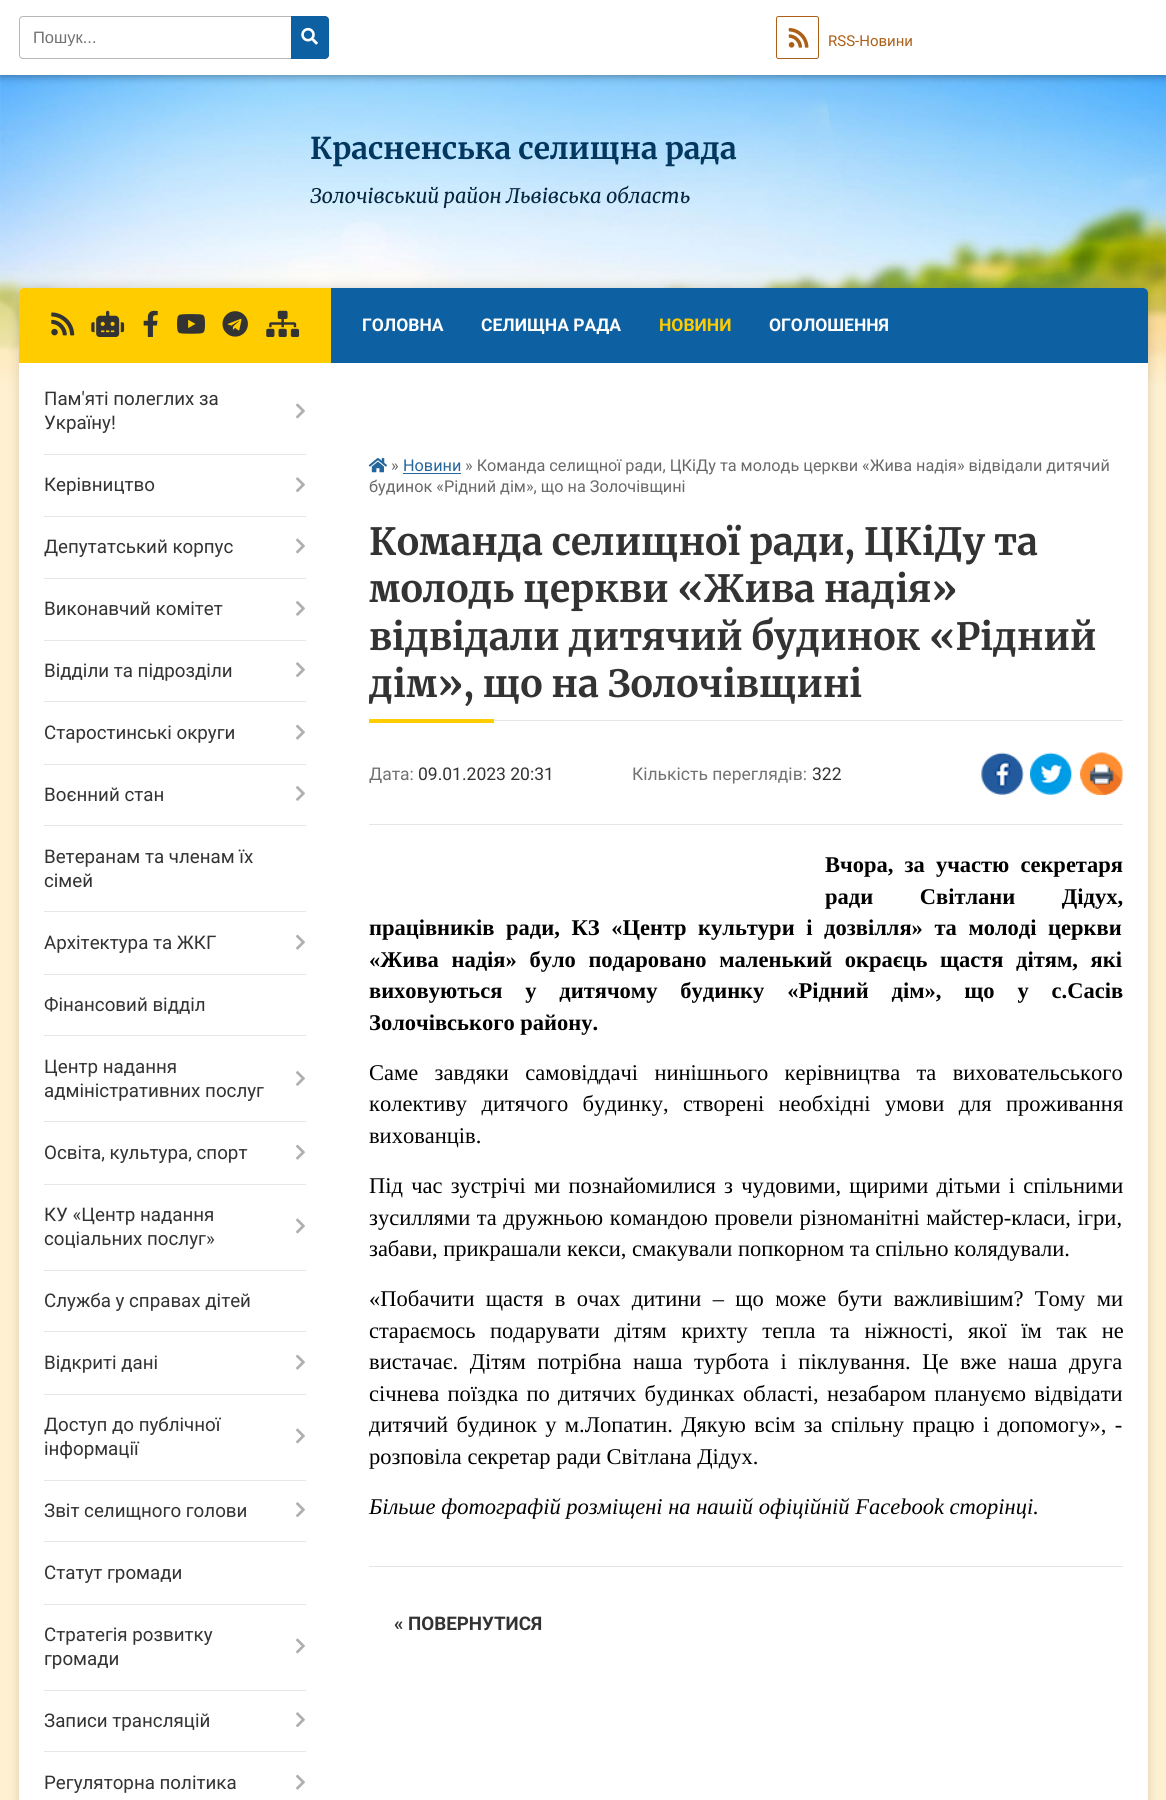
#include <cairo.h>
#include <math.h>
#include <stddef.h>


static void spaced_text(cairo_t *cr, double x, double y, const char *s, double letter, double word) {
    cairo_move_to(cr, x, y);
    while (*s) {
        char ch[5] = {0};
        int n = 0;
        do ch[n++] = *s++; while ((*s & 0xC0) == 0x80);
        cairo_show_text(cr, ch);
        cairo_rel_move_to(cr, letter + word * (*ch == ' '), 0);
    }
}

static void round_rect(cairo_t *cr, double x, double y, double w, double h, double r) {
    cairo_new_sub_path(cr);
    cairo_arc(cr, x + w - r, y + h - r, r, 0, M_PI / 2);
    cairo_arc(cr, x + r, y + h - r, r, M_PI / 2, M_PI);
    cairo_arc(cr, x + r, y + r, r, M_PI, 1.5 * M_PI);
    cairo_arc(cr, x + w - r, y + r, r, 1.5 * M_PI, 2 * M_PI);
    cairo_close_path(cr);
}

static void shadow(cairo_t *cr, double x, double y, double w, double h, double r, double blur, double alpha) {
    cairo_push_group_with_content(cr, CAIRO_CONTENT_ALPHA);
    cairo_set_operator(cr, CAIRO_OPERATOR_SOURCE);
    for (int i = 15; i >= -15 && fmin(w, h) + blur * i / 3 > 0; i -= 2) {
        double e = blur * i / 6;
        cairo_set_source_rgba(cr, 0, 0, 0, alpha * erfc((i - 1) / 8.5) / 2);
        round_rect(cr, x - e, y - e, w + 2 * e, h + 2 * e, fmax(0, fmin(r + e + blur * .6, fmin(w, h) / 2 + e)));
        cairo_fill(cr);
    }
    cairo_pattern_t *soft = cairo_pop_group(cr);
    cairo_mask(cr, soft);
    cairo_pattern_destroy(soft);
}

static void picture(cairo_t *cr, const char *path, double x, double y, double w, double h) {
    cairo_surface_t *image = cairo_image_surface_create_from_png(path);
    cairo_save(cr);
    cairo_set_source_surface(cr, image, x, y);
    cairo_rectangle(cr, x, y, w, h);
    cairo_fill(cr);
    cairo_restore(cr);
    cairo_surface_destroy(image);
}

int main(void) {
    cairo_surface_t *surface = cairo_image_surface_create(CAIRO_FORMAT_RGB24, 1166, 1800);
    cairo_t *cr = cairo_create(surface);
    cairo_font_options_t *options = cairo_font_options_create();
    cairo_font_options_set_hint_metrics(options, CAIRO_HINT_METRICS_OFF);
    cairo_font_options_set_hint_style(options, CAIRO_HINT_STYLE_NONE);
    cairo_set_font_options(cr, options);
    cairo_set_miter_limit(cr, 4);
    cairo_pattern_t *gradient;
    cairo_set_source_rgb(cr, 1, 1, 1);
    cairo_paint(cr);
    picture(cr, "img1.png", 0, 75, 1166, 311);
    gradient = cairo_pattern_create_linear(583, 0, 583, 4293);
    cairo_pattern_add_color_stop_rgba(gradient, 0.06, 1, 0.945, 0.816, 0);
    cairo_pattern_add_color_stop_rgba(gradient, 0.09, 1, 0.945, 0.816, 1);
    cairo_set_source(cr, gradient);
    cairo_pattern_destroy(gradient);
    cairo_rectangle(cr, 0, 260, 1166, 1540);
    cairo_fill(cr);
    cairo_set_source_rgb(cr, 0, 0, 0);
    shadow(cr, 0, 1, 1166, 75, 0, 4.5, 0.4);
    cairo_set_source_rgb(cr, 1, 1, 1);
    cairo_rectangle(cr, 0, 0, 1166, 75);
    cairo_fill(cr);
    round_rect(cr, 19.5, 16.5, 309, 42, 3.5);
    cairo_set_source_rgb(cr, 0.718, 0.718, 0.718);
    cairo_set_line_width(cr, 1);
    cairo_stroke(cr);
    cairo_save(cr);
    cairo_rectangle(cr, 33, 28, 245, 18);
    cairo_clip(cr);
    cairo_select_font_face(cr, "Liberation Sans", CAIRO_FONT_SLANT_NORMAL, CAIRO_FONT_WEIGHT_NORMAL);
    cairo_set_font_size(cr, 16.5);
    cairo_set_source_rgb(cr, 0.447, 0.447, 0.447);
    cairo_move_to(cr, 33, 43);
    cairo_show_text(cr, "Пошук...");
    cairo_restore(cr);
    cairo_set_source_rgb(cr, 0.051, 0.38, 0.635);
    cairo_new_path(cr);
    cairo_move_to(cr, 291, 16);
    cairo_line_to(cr, 325, 16);
    cairo_curve_to(cr, 327, 16, 329, 18, 329, 20);
    cairo_line_to(cr, 329, 55);
    cairo_curve_to(cr, 329, 57, 327, 59, 325, 59);
    cairo_line_to(cr, 291, 59);
    cairo_close_path(cr);
    cairo_fill(cr);
    picture(cr, "img2.png", 301, 27, 17, 18);
    round_rect(cr, 776.5, 16.5, 42, 42, 2);
    cairo_set_source_rgb(cr, 0.671, 0.373, 0.09);
    cairo_stroke(cr);
    picture(cr, "img3.png", 788, 28, 21, 20);
    cairo_select_font_face(cr, "Roboto", CAIRO_FONT_SLANT_NORMAL, CAIRO_FONT_WEIGHT_NORMAL);
    cairo_set_font_size(cr, 15);
    cairo_move_to(cr, 828, 46);
    cairo_show_text(cr, "RSS-Новини");
    cairo_select_font_face(cr, "Merriweather Light", CAIRO_FONT_SLANT_NORMAL, CAIRO_FONT_WEIGHT_NORMAL);
    cairo_set_font_size(cr, 30);
    cairo_set_source_rgb(cr, 0.008, 0.216, 0.373);
    cairo_move_to(cr, 310, 159);
    cairo_show_text(cr, "Красненська селищна рада");
    cairo_select_font_face(cr, "Merriweather Light", CAIRO_FONT_SLANT_ITALIC, CAIRO_FONT_WEIGHT_NORMAL);
    cairo_set_font_size(cr, 20);
    cairo_set_source_rgb(cr, 0.02, 0.145, 0.243);
    cairo_move_to(cr, 310, 203);
    cairo_show_text(cr, "Золочівський район Львівська область");
    cairo_set_source_rgb(cr, 0, 0, 0);
    shadow(cr, 19, 288, 1129, 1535, 5, 6, 0.15);
    cairo_set_source_rgb(cr, 1, 1, 1);
    round_rect(cr, 19, 288, 1129, 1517, 5);
    cairo_fill(cr);
    cairo_set_source_rgb(cr, 1, 0.8, 0);
    cairo_new_path(cr);
    cairo_move_to(cr, 24, 288);
    cairo_line_to(cr, 331, 288);
    cairo_line_to(cr, 331, 363);
    cairo_line_to(cr, 19, 363);
    cairo_line_to(cr, 19, 293);
    cairo_curve_to(cr, 19, 290, 21, 288, 24, 288);
    cairo_close_path(cr);
    cairo_fill(cr);
    picture(cr, "img4.png", 51, 312, 24, 24);
    picture(cr, "img5.png", 91, 310, 34, 27);
    picture(cr, "img6.png", 143, 310, 15, 27);
    picture(cr, "img7.png", 177, 314, 28, 20);
    picture(cr, "img8.png", 222, 311, 26, 26);
    picture(cr, "img9.png", 266, 310, 34, 27);
    cairo_select_font_face(cr, "Roboto", CAIRO_FONT_SLANT_NORMAL, CAIRO_FONT_WEIGHT_NORMAL);
    cairo_set_font_size(cr, 18.75);
    cairo_set_source_rgb(cr, 0.2, 0.2, 0.2);
    cairo_move_to(cr, 44, 405);
    cairo_show_text(cr, "Пам'яті полеглих за");
    cairo_move_to(cr, 44, 429);
    cairo_show_text(cr, "Україну!");
    cairo_set_source_rgb(cr, 0.902, 0.902, 0.902);
    cairo_rectangle(cr, 44, 454, 262, 1);
    cairo_fill(cr);
    picture(cr, "img10.png", 296, 403, 9, 16);
    cairo_set_source_rgb(cr, 0.2, 0.2, 0.2);
    cairo_move_to(cr, 44, 491);
    cairo_show_text(cr, "Керівництво");
    cairo_set_source_rgb(cr, 0.902, 0.902, 0.902);
    cairo_rectangle(cr, 44, 516, 262, 1);
    cairo_fill(cr);
    picture(cr, "img11.png", 296, 477, 9, 15);
    cairo_set_source_rgb(cr, 0.2, 0.2, 0.2);
    cairo_move_to(cr, 44, 553);
    cairo_show_text(cr, "Депутатський корпус");
    cairo_set_source_rgb(cr, 0.902, 0.902, 0.902);
    cairo_rectangle(cr, 44, 578, 262, 1);
    cairo_fill(cr);
    picture(cr, "img10.png", 296, 538, 9, 16);
    cairo_set_source_rgb(cr, 0.2, 0.2, 0.2);
    cairo_move_to(cr, 44, 615);
    cairo_show_text(cr, "Виконавчий комітет");
    cairo_set_source_rgb(cr, 0.902, 0.902, 0.902);
    cairo_rectangle(cr, 44, 640, 262, 1);
    cairo_fill(cr);
    picture(cr, "img12.png", 296, 601, 9, 15);
    cairo_set_source_rgb(cr, 0.2, 0.2, 0.2);
    cairo_move_to(cr, 44, 677);
    cairo_show_text(cr, "Відділи та підрозділи");
    cairo_set_source_rgb(cr, 0.902, 0.902, 0.902);
    cairo_rectangle(cr, 44, 701, 262, 1);
    cairo_fill(cr);
    picture(cr, "img11.png", 296, 662, 9, 15);
    cairo_set_source_rgb(cr, 0.2, 0.2, 0.2);
    cairo_move_to(cr, 44, 739);
    cairo_show_text(cr, "Старостинські округи");
    cairo_set_source_rgb(cr, 0.902, 0.902, 0.902);
    cairo_rectangle(cr, 44, 764, 262, 1);
    cairo_fill(cr);
    picture(cr, "img13.png", 296, 724, 9, 16);
    cairo_set_source_rgb(cr, 0.2, 0.2, 0.2);
    cairo_move_to(cr, 44, 801);
    cairo_show_text(cr, "Воєнний стан");
    cairo_set_source_rgb(cr, 0.902, 0.902, 0.902);
    cairo_rectangle(cr, 44, 825, 262, 1);
    cairo_fill(cr);
    picture(cr, "img12.png", 296, 786, 9, 15);
    cairo_set_source_rgb(cr, 0.2, 0.2, 0.2);
    cairo_move_to(cr, 44, 863);
    cairo_show_text(cr, "Ветеранам та членам їх");
    cairo_move_to(cr, 44, 887);
    cairo_show_text(cr, "сімей");
    cairo_set_source_rgb(cr, 0.902, 0.902, 0.902);
    cairo_rectangle(cr, 44, 911, 262, 1);
    cairo_fill(cr);
    cairo_set_source_rgb(cr, 0.2, 0.2, 0.2);
    cairo_move_to(cr, 44, 949);
    cairo_show_text(cr, "Архітектура та ЖКГ");
    cairo_set_source_rgb(cr, 0.902, 0.902, 0.902);
    cairo_rectangle(cr, 44, 974, 262, 1);
    cairo_fill(cr);
    picture(cr, "img13.png", 296, 934, 9, 16);
    cairo_set_source_rgb(cr, 0.2, 0.2, 0.2);
    cairo_move_to(cr, 44, 1011);
    cairo_show_text(cr, "Фінансовий відділ");
    cairo_set_source_rgb(cr, 0.902, 0.902, 0.902);
    cairo_rectangle(cr, 44, 1035, 262, 1);
    cairo_fill(cr);
    cairo_set_source_rgb(cr, 0.2, 0.2, 0.2);
    cairo_move_to(cr, 44, 1073);
    cairo_show_text(cr, "Центр надання");
    cairo_move_to(cr, 44, 1097);
    cairo_show_text(cr, "адміністративних послуг");
    cairo_set_source_rgb(cr, 0.902, 0.902, 0.902);
    cairo_rectangle(cr, 44, 1121, 262, 1);
    cairo_fill(cr);
    picture(cr, "img12.png", 296, 1071, 9, 15);
    cairo_set_source_rgb(cr, 0.2, 0.2, 0.2);
    cairo_move_to(cr, 44, 1159);
    cairo_show_text(cr, "Освіта, культура, спорт");
    cairo_set_source_rgb(cr, 0.902, 0.902, 0.902);
    cairo_rectangle(cr, 44, 1184, 262, 1);
    cairo_fill(cr);
    picture(cr, "img13.png", 296, 1144, 9, 16);
    cairo_set_source_rgb(cr, 0.2, 0.2, 0.2);
    cairo_move_to(cr, 44, 1221);
    cairo_show_text(cr, "КУ «Центр надання");
    cairo_move_to(cr, 44, 1245);
    cairo_show_text(cr, "соціальних послуг»");
    cairo_set_source_rgb(cr, 0.902, 0.902, 0.902);
    cairo_rectangle(cr, 44, 1270, 262, 1);
    cairo_fill(cr);
    picture(cr, "img10.png", 296, 1218, 9, 16);
    cairo_set_source_rgb(cr, 0.2, 0.2, 0.2);
    cairo_move_to(cr, 44, 1307);
    cairo_show_text(cr, "Служба у справах дітей");
    cairo_set_source_rgb(cr, 0.902, 0.902, 0.902);
    cairo_rectangle(cr, 44, 1331, 262, 1);
    cairo_fill(cr);
    cairo_set_source_rgb(cr, 0.2, 0.2, 0.2);
    cairo_move_to(cr, 44, 1369);
    cairo_show_text(cr, "Відкриті дані");
    cairo_set_source_rgb(cr, 0.902, 0.902, 0.902);
    cairo_rectangle(cr, 44, 1394, 262, 1);
    cairo_fill(cr);
    picture(cr, "img13.png", 296, 1354, 9, 16);
    cairo_set_source_rgb(cr, 0.2, 0.2, 0.2);
    cairo_move_to(cr, 44, 1431);
    cairo_show_text(cr, "Доступ до публічної");
    cairo_move_to(cr, 44, 1455);
    cairo_show_text(cr, "інформації");
    cairo_set_source_rgb(cr, 0.902, 0.902, 0.902);
    cairo_rectangle(cr, 44, 1480, 262, 1);
    cairo_fill(cr);
    picture(cr, "img10.png", 296, 1428, 9, 16);
    cairo_set_source_rgb(cr, 0.2, 0.2, 0.2);
    cairo_move_to(cr, 44, 1517);
    cairo_show_text(cr, "Звіт селищного голови");
    cairo_set_source_rgb(cr, 0.902, 0.902, 0.902);
    cairo_rectangle(cr, 44, 1541, 262, 1);
    cairo_fill(cr);
    picture(cr, "img11.png", 296, 1502, 9, 15);
    cairo_set_source_rgb(cr, 0.2, 0.2, 0.2);
    cairo_move_to(cr, 44, 1579);
    cairo_show_text(cr, "Статут громади");
    cairo_set_source_rgb(cr, 0.902, 0.902, 0.902);
    cairo_rectangle(cr, 44, 1604, 262, 1);
    cairo_fill(cr);
    cairo_set_source_rgb(cr, 0.2, 0.2, 0.2);
    cairo_move_to(cr, 44, 1641);
    cairo_show_text(cr, "Стратегія розвитку");
    cairo_move_to(cr, 44, 1665);
    cairo_show_text(cr, "громади");
    cairo_set_source_rgb(cr, 0.902, 0.902, 0.902);
    cairo_rectangle(cr, 44, 1690, 262, 1);
    cairo_fill(cr);
    picture(cr, "img10.png", 296, 1638, 9, 16);
    cairo_set_source_rgb(cr, 0.2, 0.2, 0.2);
    cairo_move_to(cr, 44, 1727);
    cairo_show_text(cr, "Записи трансляцій");
    cairo_set_source_rgb(cr, 0.902, 0.902, 0.902);
    cairo_rectangle(cr, 44, 1751, 262, 1);
    cairo_fill(cr);
    picture(cr, "img11.png", 296, 1712, 9, 15);
    cairo_set_source_rgb(cr, 0.2, 0.2, 0.2);
    cairo_move_to(cr, 44, 1789);
    cairo_show_text(cr, "Регуляторна політика");
    picture(cr, "img13.png", 296, 1774, 9, 16);
    cairo_set_source_rgb(cr, 0.051, 0.38, 0.635);
    cairo_new_path(cr);
    cairo_move_to(cr, 331, 288);
    cairo_line_to(cr, 1143, 288);
    cairo_curve_to(cr, 1146, 288, 1148, 290, 1148, 293);
    cairo_line_to(cr, 1148, 363);
    cairo_line_to(cr, 331, 363);
    cairo_close_path(cr);
    cairo_fill(cr);
    cairo_select_font_face(cr, "Roboto", CAIRO_FONT_SLANT_NORMAL, CAIRO_FONT_WEIGHT_BOLD);
    cairo_set_font_size(cr, 17.5);
    cairo_set_source_rgb(cr, 1, 1, 1);
    cairo_move_to(cr, 362, 331);
    cairo_show_text(cr, "ГОЛОВНА");
    cairo_move_to(cr, 481, 331);
    cairo_show_text(cr, "СЕЛИЩНА РАДА");
    cairo_set_source_rgb(cr, 1, 0.8, 0);
    cairo_move_to(cr, 659, 331);
    cairo_show_text(cr, "НОВИНИ");
    cairo_set_source_rgb(cr, 1, 1, 1);
    cairo_move_to(cr, 769, 331);
    cairo_show_text(cr, "ОГОЛОШЕННЯ");
    picture(cr, "img14.png", 368, 458, 19, 15);
    cairo_select_font_face(cr, "Roboto", CAIRO_FONT_SLANT_NORMAL, CAIRO_FONT_WEIGHT_NORMAL);
    cairo_set_font_size(cr, 16.25);
    cairo_set_source_rgb(cr, 0.412, 0.412, 0.412);
    cairo_move_to(cr, 391, 471);
    cairo_show_text(cr, "»");
    cairo_set_source_rgb(cr, 0.145, 0.4, 0.612);
    cairo_move_to(cr, 403, 471);
    cairo_show_text(cr, "Новини");
    cairo_rectangle(cr, 403, 473, 58, 1);
    cairo_fill(cr);
    cairo_set_source_rgb(cr, 0.412, 0.412, 0.412);
    cairo_move_to(cr, 465, 471);
    cairo_show_text(cr, "» Команда селищної ради, ЦКіДу та молодь церкви «Жива надія» відвідали дитячий");
    cairo_move_to(cr, 369, 492);
    cairo_show_text(cr, "будинок «Рідний дім», що на Золочівщині");
    cairo_set_source_rgb(cr, 0.898, 0.898, 0.898);
    cairo_rectangle(cr, 494, 720, 629, 1);
    cairo_fill(cr);
    cairo_select_font_face(cr, "Merriweather Light", CAIRO_FONT_SLANT_NORMAL, CAIRO_FONT_WEIGHT_NORMAL);
    cairo_set_font_size(cr, 37.5);
    cairo_set_source_rgb(cr, 0.2, 0.2, 0.2);
    cairo_move_to(cr, 369, 555);
    cairo_show_text(cr, "Команда селищної ради, ЦКіДу та");
    cairo_move_to(cr, 369, 602);
    cairo_show_text(cr, "молодь церкви «Жива надія»");
    cairo_move_to(cr, 369, 650);
    cairo_show_text(cr, "відвідали дитячий будинок «Рідний");
    cairo_move_to(cr, 369, 697);
    cairo_show_text(cr, "дім», що на Золочівщині");
    cairo_set_source_rgb(cr, 1, 0.8, 0);
    cairo_rectangle(cr, 369, 719, 125, 4);
    cairo_fill(cr);
    cairo_select_font_face(cr, "Roboto", CAIRO_FONT_SLANT_NORMAL, CAIRO_FONT_WEIGHT_NORMAL);
    cairo_set_font_size(cr, 17.5);
    cairo_set_source_rgb(cr, 0.447, 0.447, 0.447);
    cairo_move_to(cr, 369, 780);
    cairo_show_text(cr, "Дата:");
    cairo_set_source_rgb(cr, 0.2, 0.2, 0.2);
    cairo_move_to(cr, 418, 780);
    cairo_show_text(cr, "09.01.2023 20:31");
    cairo_set_source_rgb(cr, 0.447, 0.447, 0.447);
    cairo_move_to(cr, 632, 780);
    cairo_show_text(cr, "Кількість переглядів:");
    cairo_set_source_rgb(cr, 0.2, 0.2, 0.2);
    cairo_move_to(cr, 812, 780);
    cairo_show_text(cr, "322");
    picture(cr, "img15.png", 981, 752, 43, 43);
    picture(cr, "img16.png", 1030, 752, 42, 43);
    picture(cr, "img17.png", 1080, 752, 43, 43);
    cairo_set_source_rgb(cr, 0.898, 0.898, 0.898);
    cairo_rectangle(cr, 369, 824, 754, 1);
    cairo_fill(cr);
    cairo_select_font_face(cr, "Liberation Serif", CAIRO_FONT_SLANT_NORMAL, CAIRO_FONT_WEIGHT_BOLD);
    cairo_set_font_size(cr, 22.5);
    cairo_set_source_rgb(cr, 0, 0, 0);
    spaced_text(cr, 825, 872, "Вчора, за участю секретаря", 0, 5.5);
    spaced_text(cr, 825, 904, "ради Світлани Дідух,", 0, 41);
    spaced_text(cr, 369, 935, "працівників ради, КЗ «Центр культури і дозвілля» та молоді церкви", 0, 6);
    spaced_text(cr, 369, 967, "«Жива надія» було подаровано маленький окраєць щастя дітям, які", 0, 7);
    spaced_text(cr, 369, 998, "виховуються у дитячому будинку «Рідний дім», що у с.Сасів", 0, 17.25);
    cairo_move_to(cr, 369, 1030);
    cairo_show_text(cr, "Золочівського району.");
    cairo_select_font_face(cr, "Liberation Serif", CAIRO_FONT_SLANT_NORMAL, CAIRO_FONT_WEIGHT_NORMAL);
    spaced_text(cr, 369, 1080, "Саме завдяки самовіддачі нинішнього керівництва та виховательського", 0, 10.75);
    spaced_text(cr, 369, 1111, "колективу дитячого будинку, створені необхідні умови для проживання", 0, 8.75);
    cairo_move_to(cr, 369, 1143);
    cairo_show_text(cr, "вихованців.");
    spaced_text(cr, 369, 1193, "Під час зустрічі ми познайомилися з чудовими, щирими дітьми і спільними", 0, 2.6);
    spaced_text(cr, 369, 1225, "зусиллями та дружньою командою провели різноманітні майстер-класи, ігри,", 0, 1);
    cairo_move_to(cr, 369, 1256);
    cairo_show_text(cr, "забави, прикрашали кекси, смакували попкорном та спільно колядували.");
    spaced_text(cr, 369, 1306, "«Побачити щастя в очах дитини – що може бути важливішим? Тому ми", 0, 5.75);
    spaced_text(cr, 369, 1338, "стараємось подарувати дітям крихту тепла та ніжності, якої їм так не", 0, 9);
    spaced_text(cr, 369, 1369, "вистачає. Дітям потрібна наша турбота і піклування. Це вже наша друга", 0, 6);
    spaced_text(cr, 369, 1401, "січнева поїздка по дитячих будинках області, незабаром плануємо відвідати", 0, 2.6);
    spaced_text(cr, 369, 1432, "дитячий будинок у м.Лопатин. Дякую всім за спільну працю і допомогу», -", 0, 2.75);
    cairo_move_to(cr, 369, 1464);
    cairo_show_text(cr, "розповіла секретар ради Світлана Дідух.");
    cairo_select_font_face(cr, "Liberation Serif", CAIRO_FONT_SLANT_ITALIC, CAIRO_FONT_WEIGHT_NORMAL);
    cairo_move_to(cr, 369, 1514);
    cairo_show_text(cr, "Більше фотографій розміщені на нашій офіційній Facebook сторінці.");
    cairo_set_source_rgb(cr, 0.898, 0.898, 0.898);
    cairo_rectangle(cr, 369, 1566, 754, 1);
    cairo_fill(cr);
    cairo_select_font_face(cr, "Roboto", CAIRO_FONT_SLANT_NORMAL, CAIRO_FONT_WEIGHT_BOLD);
    cairo_set_font_size(cr, 18.75);
    cairo_set_source_rgb(cr, 0.2, 0.2, 0.2);
    cairo_move_to(cr, 394, 1630);
    cairo_show_text(cr, "« ПОВЕРНУТИСЯ");
    cairo_surface_write_to_png(surface, "page.png");
    cairo_font_options_destroy(options);
    cairo_destroy(cr);
    cairo_surface_destroy(surface);
    return 0;
}
